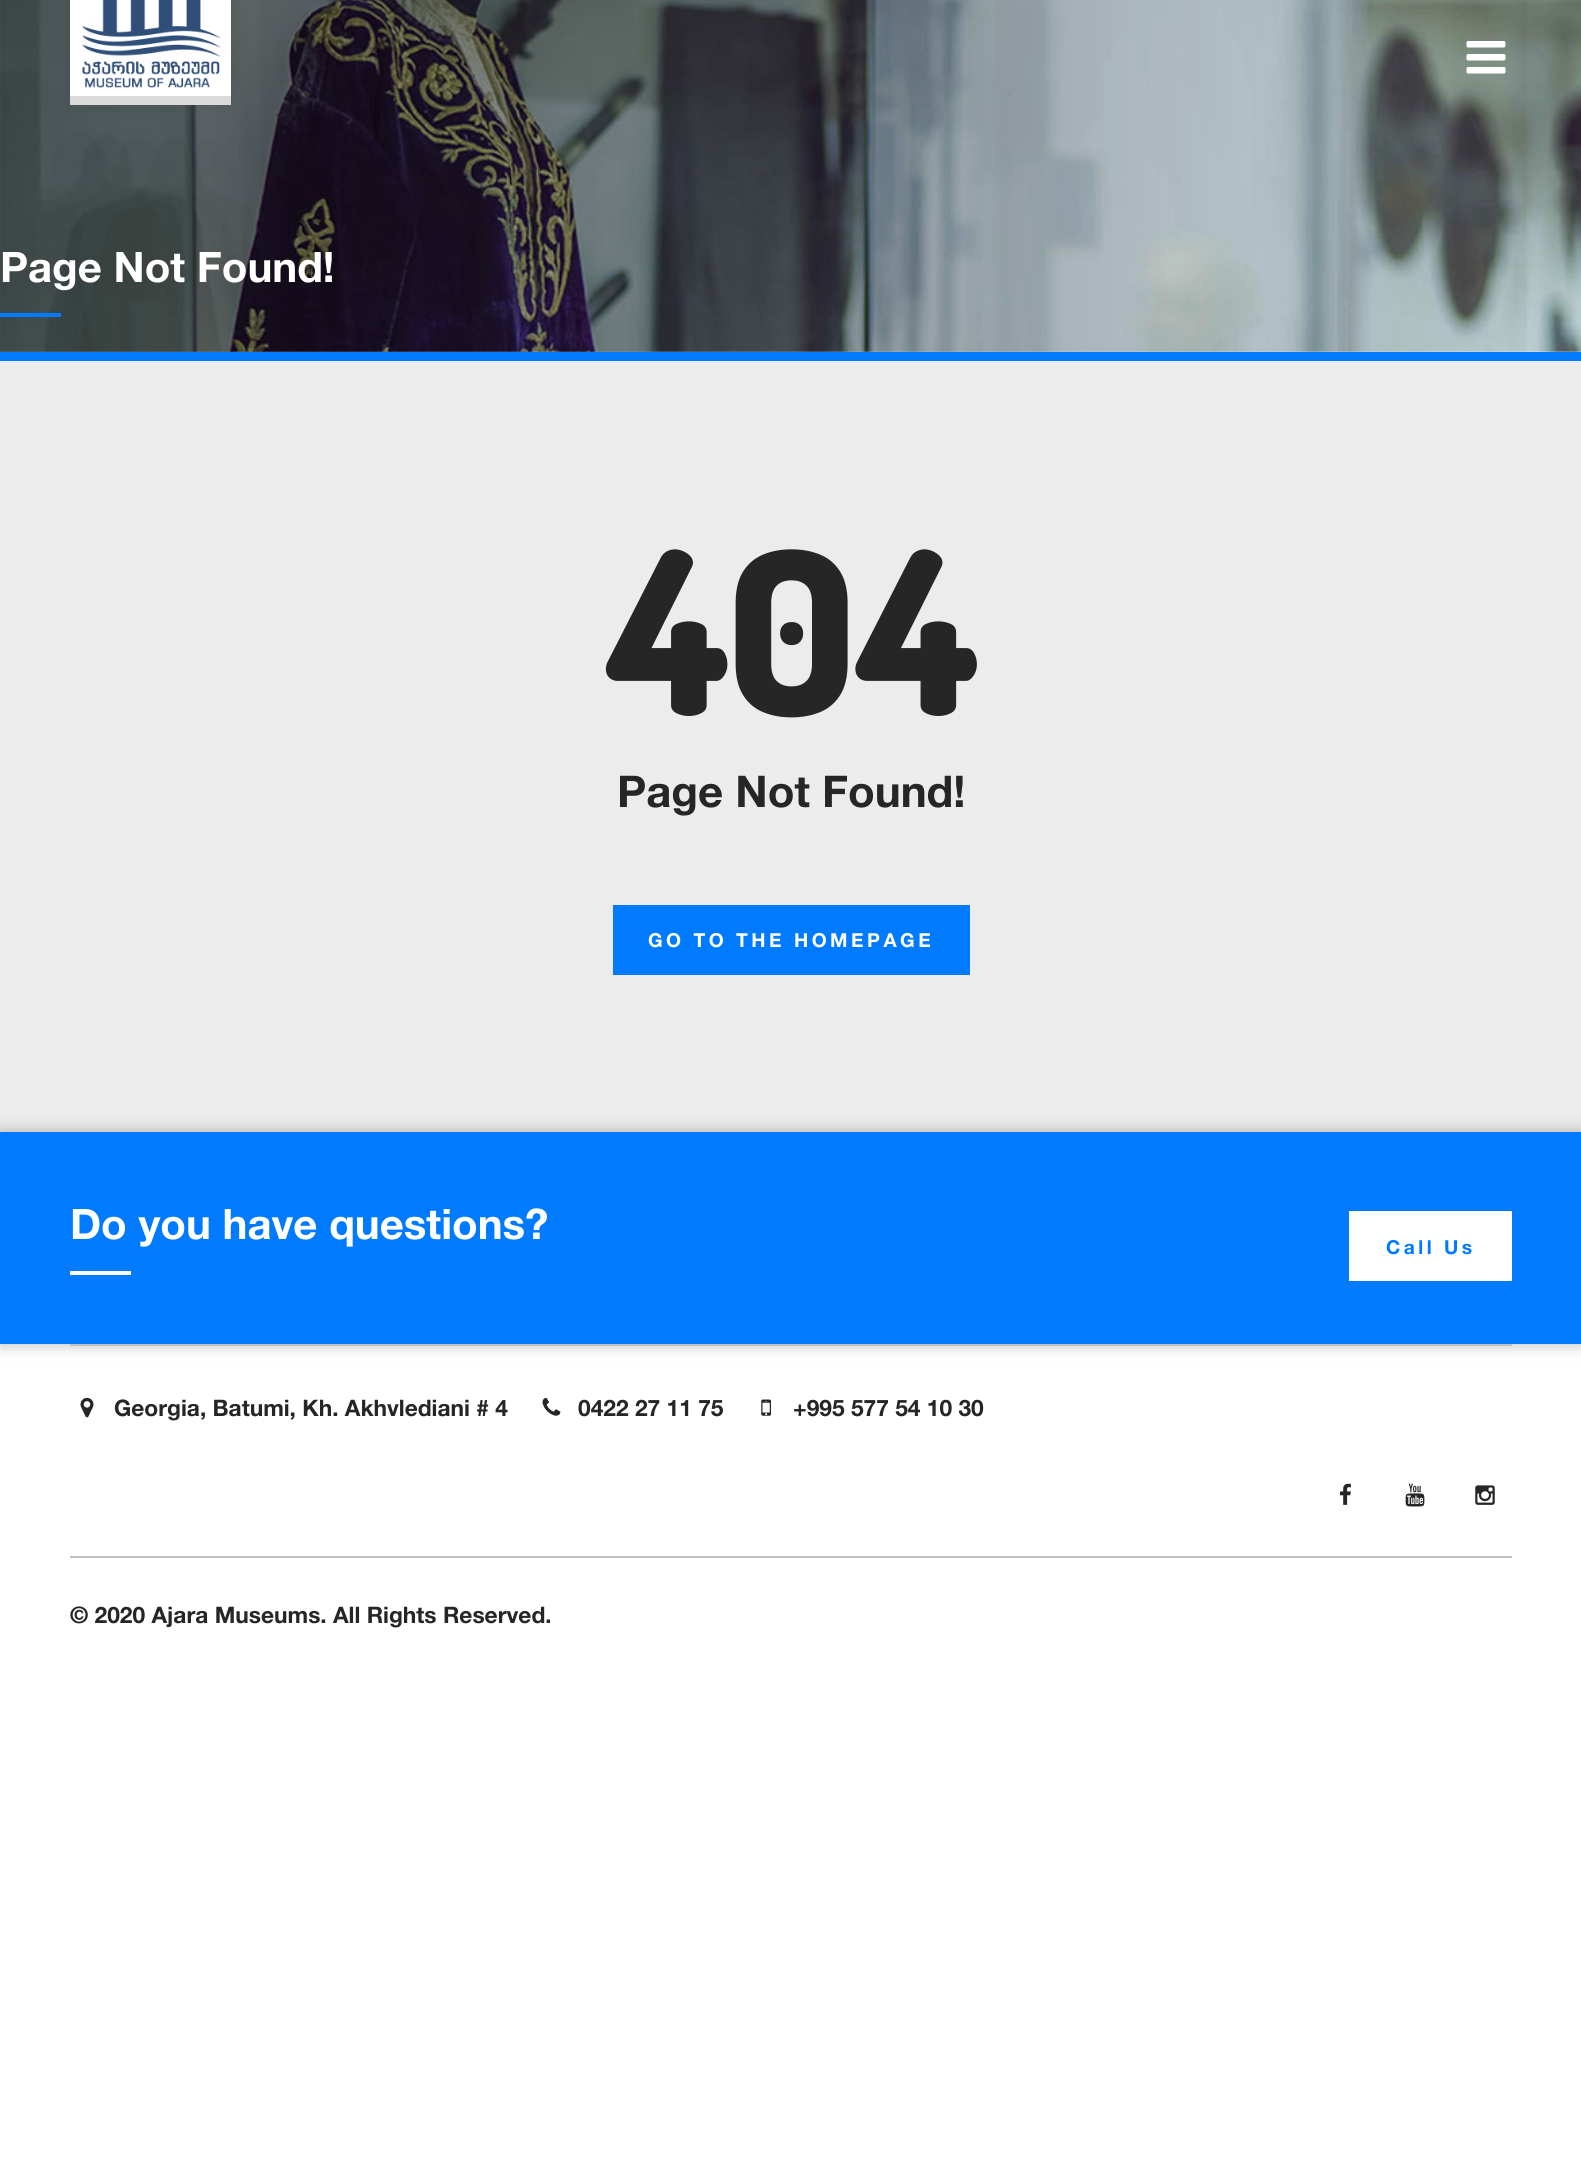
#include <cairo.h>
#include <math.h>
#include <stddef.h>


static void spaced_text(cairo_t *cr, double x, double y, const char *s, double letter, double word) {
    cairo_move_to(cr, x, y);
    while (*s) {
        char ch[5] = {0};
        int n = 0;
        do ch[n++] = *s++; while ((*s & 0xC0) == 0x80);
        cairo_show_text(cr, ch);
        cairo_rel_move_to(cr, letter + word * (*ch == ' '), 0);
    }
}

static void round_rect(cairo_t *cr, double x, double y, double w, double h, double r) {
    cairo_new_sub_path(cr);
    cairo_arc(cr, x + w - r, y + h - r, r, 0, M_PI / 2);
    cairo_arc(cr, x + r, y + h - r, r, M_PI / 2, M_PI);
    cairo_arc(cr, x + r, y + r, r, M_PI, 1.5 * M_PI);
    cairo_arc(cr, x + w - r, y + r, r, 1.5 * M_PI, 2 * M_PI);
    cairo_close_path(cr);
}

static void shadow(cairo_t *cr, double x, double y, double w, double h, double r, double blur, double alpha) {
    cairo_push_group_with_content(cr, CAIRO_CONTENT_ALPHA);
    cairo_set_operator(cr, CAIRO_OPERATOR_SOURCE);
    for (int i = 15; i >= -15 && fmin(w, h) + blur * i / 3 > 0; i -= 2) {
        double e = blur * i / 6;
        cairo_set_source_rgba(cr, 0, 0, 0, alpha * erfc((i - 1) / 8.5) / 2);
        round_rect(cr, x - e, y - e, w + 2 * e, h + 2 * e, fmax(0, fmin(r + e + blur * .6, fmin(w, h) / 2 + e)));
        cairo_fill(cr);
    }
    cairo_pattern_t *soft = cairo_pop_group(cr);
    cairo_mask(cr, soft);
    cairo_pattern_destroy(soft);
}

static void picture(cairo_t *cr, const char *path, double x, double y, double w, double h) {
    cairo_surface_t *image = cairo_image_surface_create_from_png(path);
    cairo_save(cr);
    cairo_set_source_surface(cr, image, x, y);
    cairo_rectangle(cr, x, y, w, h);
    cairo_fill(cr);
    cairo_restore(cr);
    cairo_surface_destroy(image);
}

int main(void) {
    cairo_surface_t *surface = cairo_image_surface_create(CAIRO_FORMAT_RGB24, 1581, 2166);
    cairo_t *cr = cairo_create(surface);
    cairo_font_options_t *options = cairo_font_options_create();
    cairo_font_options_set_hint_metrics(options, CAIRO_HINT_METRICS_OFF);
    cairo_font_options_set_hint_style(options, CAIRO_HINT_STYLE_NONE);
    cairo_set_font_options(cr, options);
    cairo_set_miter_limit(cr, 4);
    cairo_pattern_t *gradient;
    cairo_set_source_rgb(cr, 1, 1, 1);
    cairo_paint(cr);
    picture(cr, "img3.png", 0, 0, 1581, 352);
    gradient = cairo_pattern_create_linear(0, 123, 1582, 123);
    cairo_pattern_add_color_stop_rgba(gradient, 0, 0, 0, 0, 0.5);
    cairo_pattern_add_color_stop_rgba(gradient, 0.2, 0, 0, 0, 0.5);
    cairo_pattern_add_color_stop_rgba(gradient, 1, 0, 0, 0, 0);
    cairo_set_source(cr, gradient);
    cairo_pattern_destroy(gradient);
    cairo_rectangle(cr, 0, 0, 1527, 352);
    cairo_fill(cr);
    cairo_set_source_rgb(cr, 0.29, 0.29, 0.29);
    shadow(cr, 70, -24, 161, 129, 0, 8, 0.4);
    cairo_set_source_rgb(cr, 1, 1, 1);
    cairo_rectangle(cr, 70, 0, 161, 96);
    cairo_fill(cr);
    picture(cr, "img1.png", 82, 0, 139, 88);
    cairo_set_source_rgb(cr, 0.855, 0.855, 0.855);
    cairo_rectangle(cr, 70, 96, 161, 9);
    cairo_fill(cr);
    picture(cr, "img2.png", 1466, 41, 40, 33);
    cairo_set_source_rgb(cr, 0, 0.482, 1);
    cairo_rectangle(cr, 0, 352, 1581, 9);
    cairo_fill(cr);
    cairo_select_font_face(cr, "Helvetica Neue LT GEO", CAIRO_FONT_SLANT_NORMAL, CAIRO_FONT_WEIGHT_BOLD);
    cairo_set_font_size(cr, 42);
    cairo_set_source_rgb(cr, 1, 1, 1);
    cairo_move_to(cr, 0, 282);
    cairo_show_text(cr, "Page Not Found!");
    cairo_set_source_rgb(cr, 0, 0.482, 1);
    cairo_rectangle(cr, 0, 313, 61, 4);
    cairo_fill(cr);
    cairo_set_source_rgb(cr, 0.922, 0.922, 0.922);
    cairo_rectangle(cr, 0, 361, 1581, 771);
    cairo_fill(cr);
    cairo_select_font_face(cr, "Dosis ExtraBold", CAIRO_FONT_SLANT_NORMAL, CAIRO_FONT_WEIGHT_NORMAL);
    cairo_set_font_size(cr, 228);
    cairo_set_source_rgb(cr, 0.149, 0.149, 0.149);
    cairo_move_to(cr, 607, 716);
    cairo_show_text(cr, "404");
    cairo_select_font_face(cr, "Helvetica Neue LT GEO", CAIRO_FONT_SLANT_NORMAL, CAIRO_FONT_WEIGHT_BOLD);
    cairo_set_font_size(cr, 43.75);
    cairo_move_to(cr, 617, 807);
    cairo_show_text(cr, "Page Not Found!");
    cairo_set_source_rgb(cr, 0, 0.482, 1);
    cairo_rectangle(cr, 613, 905, 357, 70);
    cairo_fill(cr);
    cairo_set_font_size(cr, 19.25);
    cairo_set_source_rgb(cr, 1, 1, 1);
    spaced_text(cr, 648, 947, "GO TO THE HOMEPAGE", 3.5, 0);
    cairo_set_source_rgb(cr, 0.29, 0.29, 0.29);
    shadow(cr, 0, 1132, 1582, 212, 0, 8, 0.4);
    cairo_set_source_rgb(cr, 0, 0.482, 1);
    cairo_rectangle(cr, 0, 1132, 1581, 212);
    cairo_fill(cr);
    cairo_set_font_size(cr, 42);
    cairo_set_source_rgb(cr, 1, 1, 1);
    cairo_move_to(cr, 70, 1239);
    cairo_show_text(cr, "Do you have questions?");
    cairo_rectangle(cr, 70, 1271, 61, 4);
    cairo_fill(cr);
    cairo_rectangle(cr, 1349, 1211, 163, 70);
    cairo_fill(cr);
    cairo_set_font_size(cr, 19.25);
    cairo_set_source_rgb(cr, 0, 0.482, 1);
    spaced_text(cr, 1386, 1254, "Call Us", 3.5, 0);
    cairo_set_source_rgb(cr, 0.753, 0.753, 0.753);
    cairo_rectangle(cr, 70, 1344, 1442, 2);
    cairo_fill(cr);
    cairo_rectangle(cr, 70, 1556, 1442, 2);
    cairo_fill(cr);
    picture(cr, "img4.png", 80, 1397, 14, 21);
    cairo_set_font_size(cr, 22.75);
    cairo_set_source_rgb(cr, 0.149, 0.149, 0.149);
    cairo_move_to(cr, 114, 1416);
    cairo_show_text(cr, "Georgia, Batumi, Kh. Akhvlediani # 4");
    picture(cr, "img5.png", 542, 1397, 19, 19);
    cairo_move_to(cr, 578, 1416);
    cairo_show_text(cr, "0422 27 11 75");
    picture(cr, "img6.png", 761, 1399, 10, 17);
    cairo_move_to(cr, 793, 1416);
    cairo_show_text(cr, "+995 577 54 10 30");
    picture(cr, "img7.png", 1339, 1483, 12, 22);
    picture(cr, "img8.png", 1405, 1483, 20, 24);
    picture(cr, "img9.png", 1475, 1485, 20, 20);
    cairo_move_to(cr, 70, 1623);
    cairo_show_text(cr, "© 2020 Ajara Museums. All Rights Reserved.");
    cairo_surface_write_to_png(surface, "page.png");
    cairo_font_options_destroy(options);
    cairo_destroy(cr);
    cairo_surface_destroy(surface);
    return 0;
}
